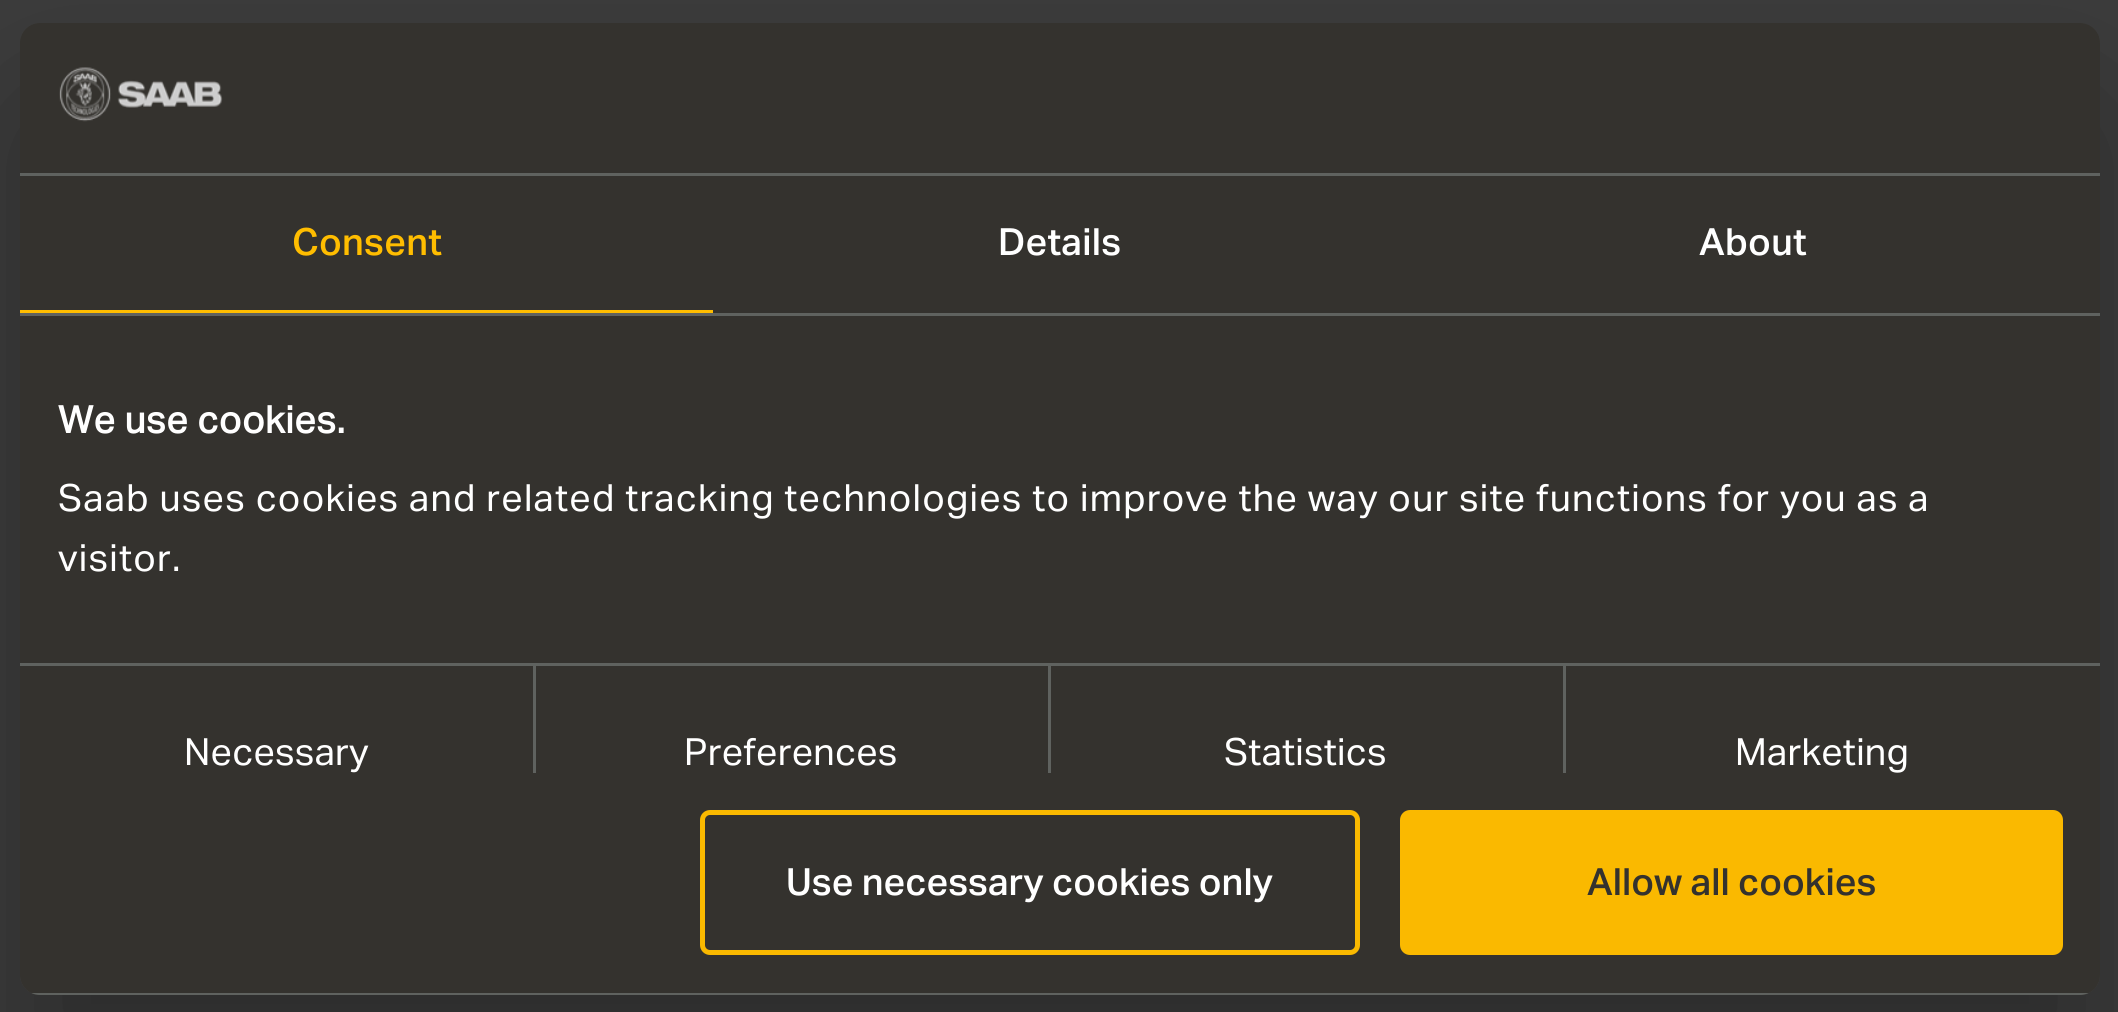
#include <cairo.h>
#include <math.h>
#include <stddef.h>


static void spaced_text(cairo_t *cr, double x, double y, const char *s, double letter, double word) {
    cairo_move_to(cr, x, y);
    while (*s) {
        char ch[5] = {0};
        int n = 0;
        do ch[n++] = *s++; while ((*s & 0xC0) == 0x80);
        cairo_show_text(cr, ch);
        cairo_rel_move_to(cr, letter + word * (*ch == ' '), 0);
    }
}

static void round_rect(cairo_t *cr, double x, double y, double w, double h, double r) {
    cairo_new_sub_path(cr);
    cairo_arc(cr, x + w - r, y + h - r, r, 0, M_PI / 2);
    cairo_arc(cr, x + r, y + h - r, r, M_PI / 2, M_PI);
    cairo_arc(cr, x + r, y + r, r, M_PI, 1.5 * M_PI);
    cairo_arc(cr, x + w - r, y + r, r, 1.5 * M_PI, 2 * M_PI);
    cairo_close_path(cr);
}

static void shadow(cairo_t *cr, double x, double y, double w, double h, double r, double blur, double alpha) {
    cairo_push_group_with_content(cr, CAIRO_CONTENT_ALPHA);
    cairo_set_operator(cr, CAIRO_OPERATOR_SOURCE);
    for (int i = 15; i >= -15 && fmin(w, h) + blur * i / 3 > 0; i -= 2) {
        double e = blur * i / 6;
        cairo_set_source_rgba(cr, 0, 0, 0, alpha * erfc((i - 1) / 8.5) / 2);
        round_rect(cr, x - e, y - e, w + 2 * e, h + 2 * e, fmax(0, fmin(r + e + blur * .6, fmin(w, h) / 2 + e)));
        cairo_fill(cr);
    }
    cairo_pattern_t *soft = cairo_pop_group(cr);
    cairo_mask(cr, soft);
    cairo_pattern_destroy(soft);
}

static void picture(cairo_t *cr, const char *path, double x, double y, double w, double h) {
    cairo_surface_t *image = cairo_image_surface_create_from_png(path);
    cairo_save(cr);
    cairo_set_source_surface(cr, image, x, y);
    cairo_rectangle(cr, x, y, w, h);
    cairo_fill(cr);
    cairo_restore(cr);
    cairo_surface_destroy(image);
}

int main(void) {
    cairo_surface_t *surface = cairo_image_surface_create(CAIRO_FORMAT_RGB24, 2118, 1012);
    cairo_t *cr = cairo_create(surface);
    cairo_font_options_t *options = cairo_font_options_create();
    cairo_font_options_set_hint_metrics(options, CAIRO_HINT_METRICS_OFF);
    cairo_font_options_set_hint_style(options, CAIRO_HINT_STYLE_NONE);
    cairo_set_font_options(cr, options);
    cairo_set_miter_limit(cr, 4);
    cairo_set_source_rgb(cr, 0.239, 0.239, 0.239);
    cairo_paint(cr);
    cairo_save(cr);
    cairo_set_fill_rule(cr, CAIRO_FILL_RULE_EVEN_ODD);
    cairo_new_path(cr);
    cairo_move_to(cr, 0, 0);
    cairo_line_to(cr, 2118, 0);
    cairo_line_to(cr, 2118, 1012);
    cairo_line_to(cr, 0, 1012);
    cairo_close_path(cr);
    cairo_move_to(cr, 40, 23);
    cairo_line_to(cr, 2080, 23);
    cairo_curve_to(cr, 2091, 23, 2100, 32, 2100, 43);
    cairo_line_to(cr, 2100, 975);
    cairo_curve_to(cr, 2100, 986, 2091, 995, 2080, 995);
    cairo_line_to(cr, 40, 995);
    cairo_curve_to(cr, 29, 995, 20, 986, 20, 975);
    cairo_line_to(cr, 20, 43);
    cairo_curve_to(cr, 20, 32, 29, 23, 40, 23);
    cairo_close_path(cr);
    cairo_clip(cr);
    cairo_set_source_rgb(cr, 0, 0, 0);
    shadow(cr, 20, 103, 2080, 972, 20, 85, 0.3);
    cairo_restore(cr);
    cairo_set_source_rgb(cr, 0.204, 0.196, 0.18);
    round_rect(cr, 20, 23, 2080, 972, 20);
    cairo_fill(cr);
    cairo_set_source_rgb(cr, 0.373, 0.384, 0.373);
    cairo_rectangle(cr, 20, 173, 2080, 3);
    cairo_fill(cr);
    picture(cr, "img1.png", 59, 67, 164, 55);
    cairo_rectangle(cr, 20, 313, 2080, 3);
    cairo_fill(cr);
    cairo_set_source_rgb(cr, 1, 0.741, 0);
    cairo_rectangle(cr, 20, 310, 693, 3);
    cairo_fill(cr);
    cairo_select_font_face(cr, "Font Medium", CAIRO_FONT_SLANT_NORMAL, CAIRO_FONT_WEIGHT_NORMAL);
    cairo_set_font_size(cr, 37.5);
    spaced_text(cr, 292, 255, "Consent", 0.25, 0);
    cairo_set_source_rgb(cr, 1, 1, 1);
    spaced_text(cr, 998, 255, "Details", 0.25, 0);
    spaced_text(cr, 1699, 255, "About", 0.25, 0);
    cairo_set_source_rgb(cr, 0.373, 0.384, 0.373);
    cairo_rectangle(cr, 20, 663, 2080, 3);
    cairo_fill(cr);
    cairo_select_font_face(cr, "Font", CAIRO_FONT_SLANT_NORMAL, CAIRO_FONT_WEIGHT_BOLD);
    cairo_set_source_rgb(cr, 1, 1, 1);
    spaced_text(cr, 58, 433, "We use cookies.", 0.6, 0);
    cairo_select_font_face(cr, "Font", CAIRO_FONT_SLANT_NORMAL, CAIRO_FONT_WEIGHT_NORMAL);
    spaced_text(cr, 58, 511, "Saab uses cookies and related tracking technologies to improve the way our site functions for you as a", 1.25, 0);
    spaced_text(cr, 58, 571, "visitor.", 1.25, 0);
    cairo_set_source_rgb(cr, 0.373, 0.384, 0.373);
    cairo_rectangle(cr, 533, 665, 3, 108);
    cairo_fill(cr);
    cairo_set_source_rgb(cr, 1, 1, 1);
    spaced_text(cr, 184, 765, "Necessary", 0.25, 0);
    cairo_set_source_rgb(cr, 0.373, 0.384, 0.373);
    cairo_rectangle(cr, 1048, 665, 3, 108);
    cairo_fill(cr);
    cairo_set_source_rgb(cr, 1, 1, 1);
    spaced_text(cr, 684, 765, "Preferences", 0.25, 0);
    cairo_set_source_rgb(cr, 0.373, 0.384, 0.373);
    cairo_rectangle(cr, 1563, 665, 3, 108);
    cairo_fill(cr);
    cairo_set_source_rgb(cr, 1, 1, 1);
    spaced_text(cr, 1224, 765, "Statistics", 0.25, 0);
    spaced_text(cr, 1735, 765, "Marketing", 0.25, 0);
    cairo_save(cr);
    round_rect(cr, 20, 23, 2080, 972, 20);
    cairo_clip(cr);
    cairo_set_source_rgb(cr, 0.373, 0.384, 0.373);
    cairo_rectangle(cr, 31, 993, 2058, 2);
    cairo_fill(cr);
    cairo_restore(cr);
    round_rect(cr, 702.5, 812.5, 655, 140, 7.5);
    cairo_set_source_rgb(cr, 0.98, 0.725, 0);
    cairo_set_line_width(cr, 5);
    cairo_stroke(cr);
    cairo_select_font_face(cr, "Font Medium", CAIRO_FONT_SLANT_NORMAL, CAIRO_FONT_WEIGHT_NORMAL);
    cairo_set_source_rgb(cr, 1, 1, 1);
    cairo_move_to(cr, 786, 895);
    cairo_show_text(cr, "Use necessary cookies only");
    cairo_set_source_rgb(cr, 0.98, 0.725, 0);
    round_rect(cr, 1402.5, 812.5, 658, 140, 7.5);
    cairo_fill_preserve(cr);
    cairo_stroke(cr);
    cairo_set_source_rgb(cr, 0.204, 0.196, 0.18);
    cairo_move_to(cr, 1587, 895);
    cairo_show_text(cr, "Allow all cookies");
    cairo_surface_write_to_png(surface, "page.png");
    cairo_font_options_destroy(options);
    cairo_destroy(cr);
    cairo_surface_destroy(surface);
    return 0;
}
